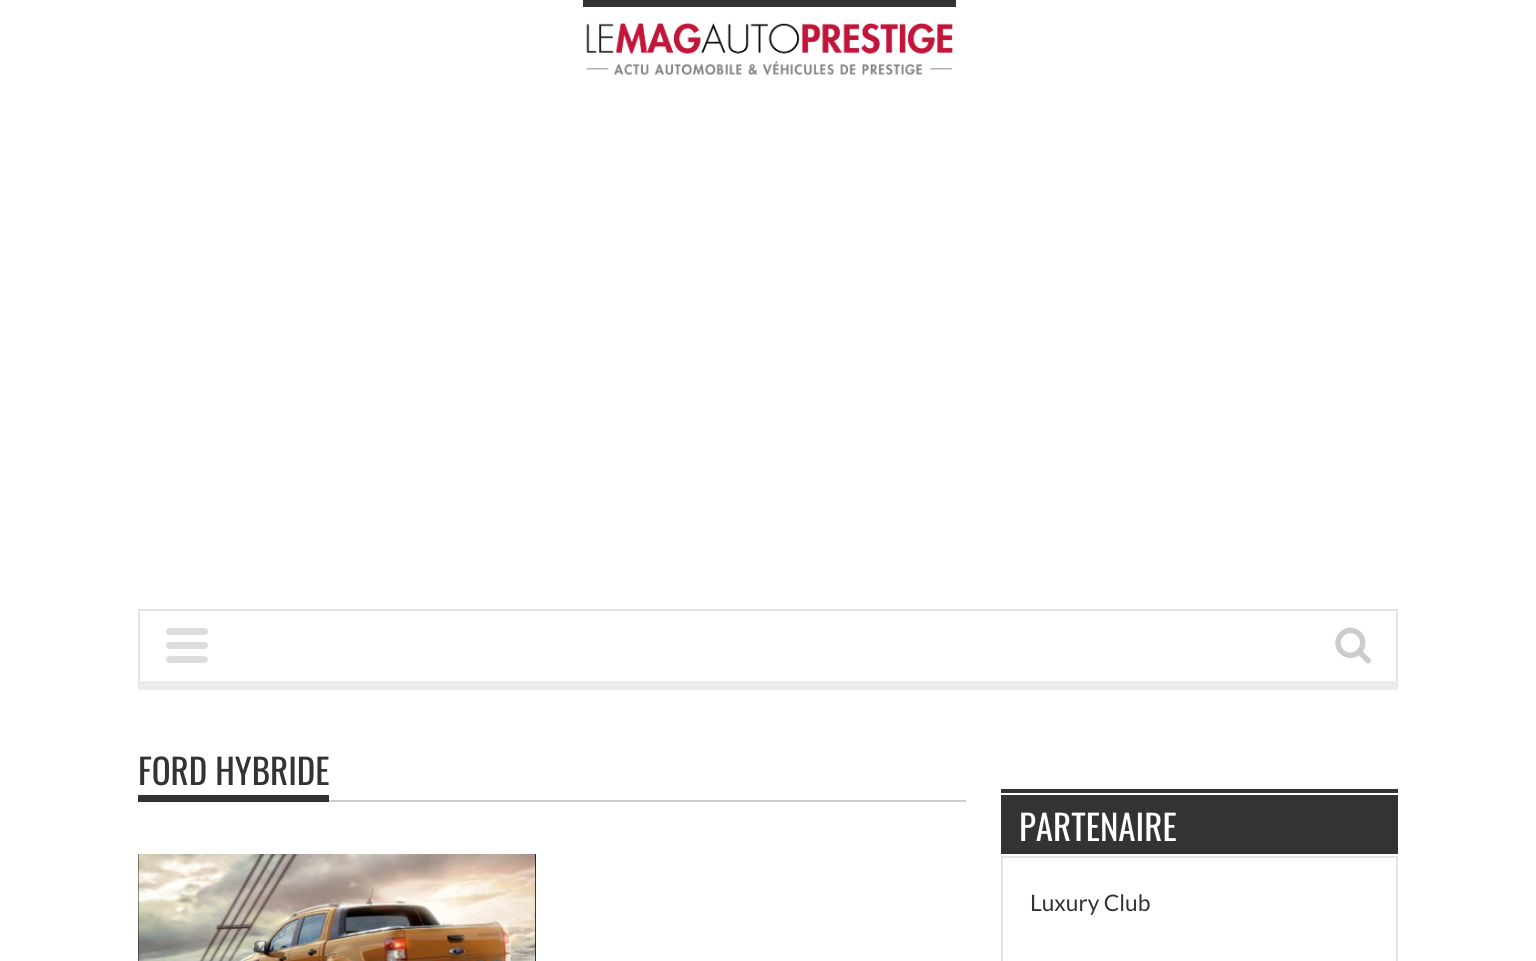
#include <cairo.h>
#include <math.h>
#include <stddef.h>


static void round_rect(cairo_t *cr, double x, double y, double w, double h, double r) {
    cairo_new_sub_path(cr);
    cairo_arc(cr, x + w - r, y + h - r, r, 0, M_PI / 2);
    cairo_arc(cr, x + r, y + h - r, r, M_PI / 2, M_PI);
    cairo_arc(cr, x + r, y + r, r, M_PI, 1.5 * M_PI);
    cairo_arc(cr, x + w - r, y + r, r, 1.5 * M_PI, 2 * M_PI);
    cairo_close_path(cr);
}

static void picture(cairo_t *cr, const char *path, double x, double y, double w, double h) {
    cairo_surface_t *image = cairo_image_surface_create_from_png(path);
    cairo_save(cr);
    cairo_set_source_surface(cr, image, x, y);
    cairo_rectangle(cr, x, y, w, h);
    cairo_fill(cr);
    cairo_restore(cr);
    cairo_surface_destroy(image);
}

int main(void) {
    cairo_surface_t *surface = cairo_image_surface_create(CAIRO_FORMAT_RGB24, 1536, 961);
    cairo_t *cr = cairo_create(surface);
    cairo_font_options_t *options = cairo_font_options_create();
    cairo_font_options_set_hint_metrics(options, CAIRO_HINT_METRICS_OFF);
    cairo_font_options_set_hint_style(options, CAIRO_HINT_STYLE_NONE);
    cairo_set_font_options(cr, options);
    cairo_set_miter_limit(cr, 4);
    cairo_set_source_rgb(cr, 1, 1, 1);
    cairo_paint(cr);
    cairo_set_source_rgb(cr, 0.2, 0.2, 0.2);
    cairo_rectangle(cr, 583, 0, 373, 7);
    cairo_fill(cr);
    picture(cr, "img1.png", 586, 23, 367, 53);
    cairo_set_source_rgb(cr, 0.894, 0.894, 0.894);
    cairo_rectangle(cr, 138, 609, 1260, 2);
    cairo_fill(cr);
    cairo_new_path(cr);
    cairo_move_to(cr, 1398, 609);
    cairo_line_to(cr, 1398, 690);
    cairo_line_to(cr, 1396, 681);
    cairo_line_to(cr, 1396, 611);
    cairo_close_path(cr);
    cairo_fill(cr);
    cairo_set_source_rgb(cr, 0.918, 0.925, 0.929);
    cairo_new_path(cr);
    cairo_move_to(cr, 1398, 690);
    cairo_line_to(cr, 138, 690);
    cairo_line_to(cr, 140, 681);
    cairo_line_to(cr, 1396, 681);
    cairo_close_path(cr);
    cairo_fill(cr);
    cairo_set_source_rgb(cr, 0.894, 0.894, 0.894);
    cairo_new_path(cr);
    cairo_move_to(cr, 138, 690);
    cairo_line_to(cr, 138, 609);
    cairo_line_to(cr, 140, 611);
    cairo_line_to(cr, 140, 681);
    cairo_close_path(cr);
    cairo_fill(cr);
    cairo_set_source_rgb(cr, 0.867, 0.867, 0.867);
    round_rect(cr, 166, 628, 42, 7, 3.5);
    cairo_fill(cr);
    round_rect(cr, 166, 642, 42, 7, 3.5);
    cairo_fill(cr);
    round_rect(cr, 166, 656, 42, 7, 3.5);
    cairo_fill(cr);
    picture(cr, "img2.png", 1335, 627, 36, 37);
    cairo_set_source_rgb(cr, 0.8, 0.8, 0.8);
    cairo_rectangle(cr, 329, 800, 637, 2);
    cairo_fill(cr);
    cairo_set_source_rgb(cr, 0.2, 0.2, 0.2);
    cairo_rectangle(cr, 138, 795, 191, 7);
    cairo_fill(cr);
    cairo_select_font_face(cr, "Oswald", CAIRO_FONT_SLANT_NORMAL, CAIRO_FONT_WEIGHT_NORMAL);
    cairo_set_font_size(cr, 35);
    cairo_move_to(cr, 138, 785);
    cairo_show_text(cr, "FORD HYBRIDE");
    cairo_set_source_rgb(cr, 0, 0, 0);
    cairo_rectangle(cr, 138, 854, 398, 107);
    cairo_fill(cr);
    picture(cr, "img3.png", 138, 854, 398, 107);
    cairo_set_source_rgb(cr, 0.2, 0.2, 0.2);
    cairo_rectangle(cr, 1001, 795, 397, 59);
    cairo_fill(cr);
    cairo_rectangle(cr, 1001, 789, 397, 4);
    cairo_fill(cr);
    cairo_set_source_rgb(cr, 1, 1, 1);
    cairo_move_to(cr, 1019, 841);
    cairo_show_text(cr, "PARTENAIRE");
    cairo_rectangle(cr, 1002, 857, 395, 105);
    cairo_set_source_rgb(cr, 0.894, 0.894, 0.894);
    cairo_stroke(cr);
    cairo_select_font_face(cr, "Lato", CAIRO_FONT_SLANT_NORMAL, CAIRO_FONT_WEIGHT_NORMAL);
    cairo_set_font_size(cr, 22.75);
    cairo_set_source_rgb(cr, 0.2, 0.2, 0.2);
    cairo_move_to(cr, 1030, 911);
    cairo_show_text(cr, "Luxury Club");
    cairo_surface_write_to_png(surface, "page.png");
    cairo_font_options_destroy(options);
    cairo_destroy(cr);
    cairo_surface_destroy(surface);
    return 0;
}
